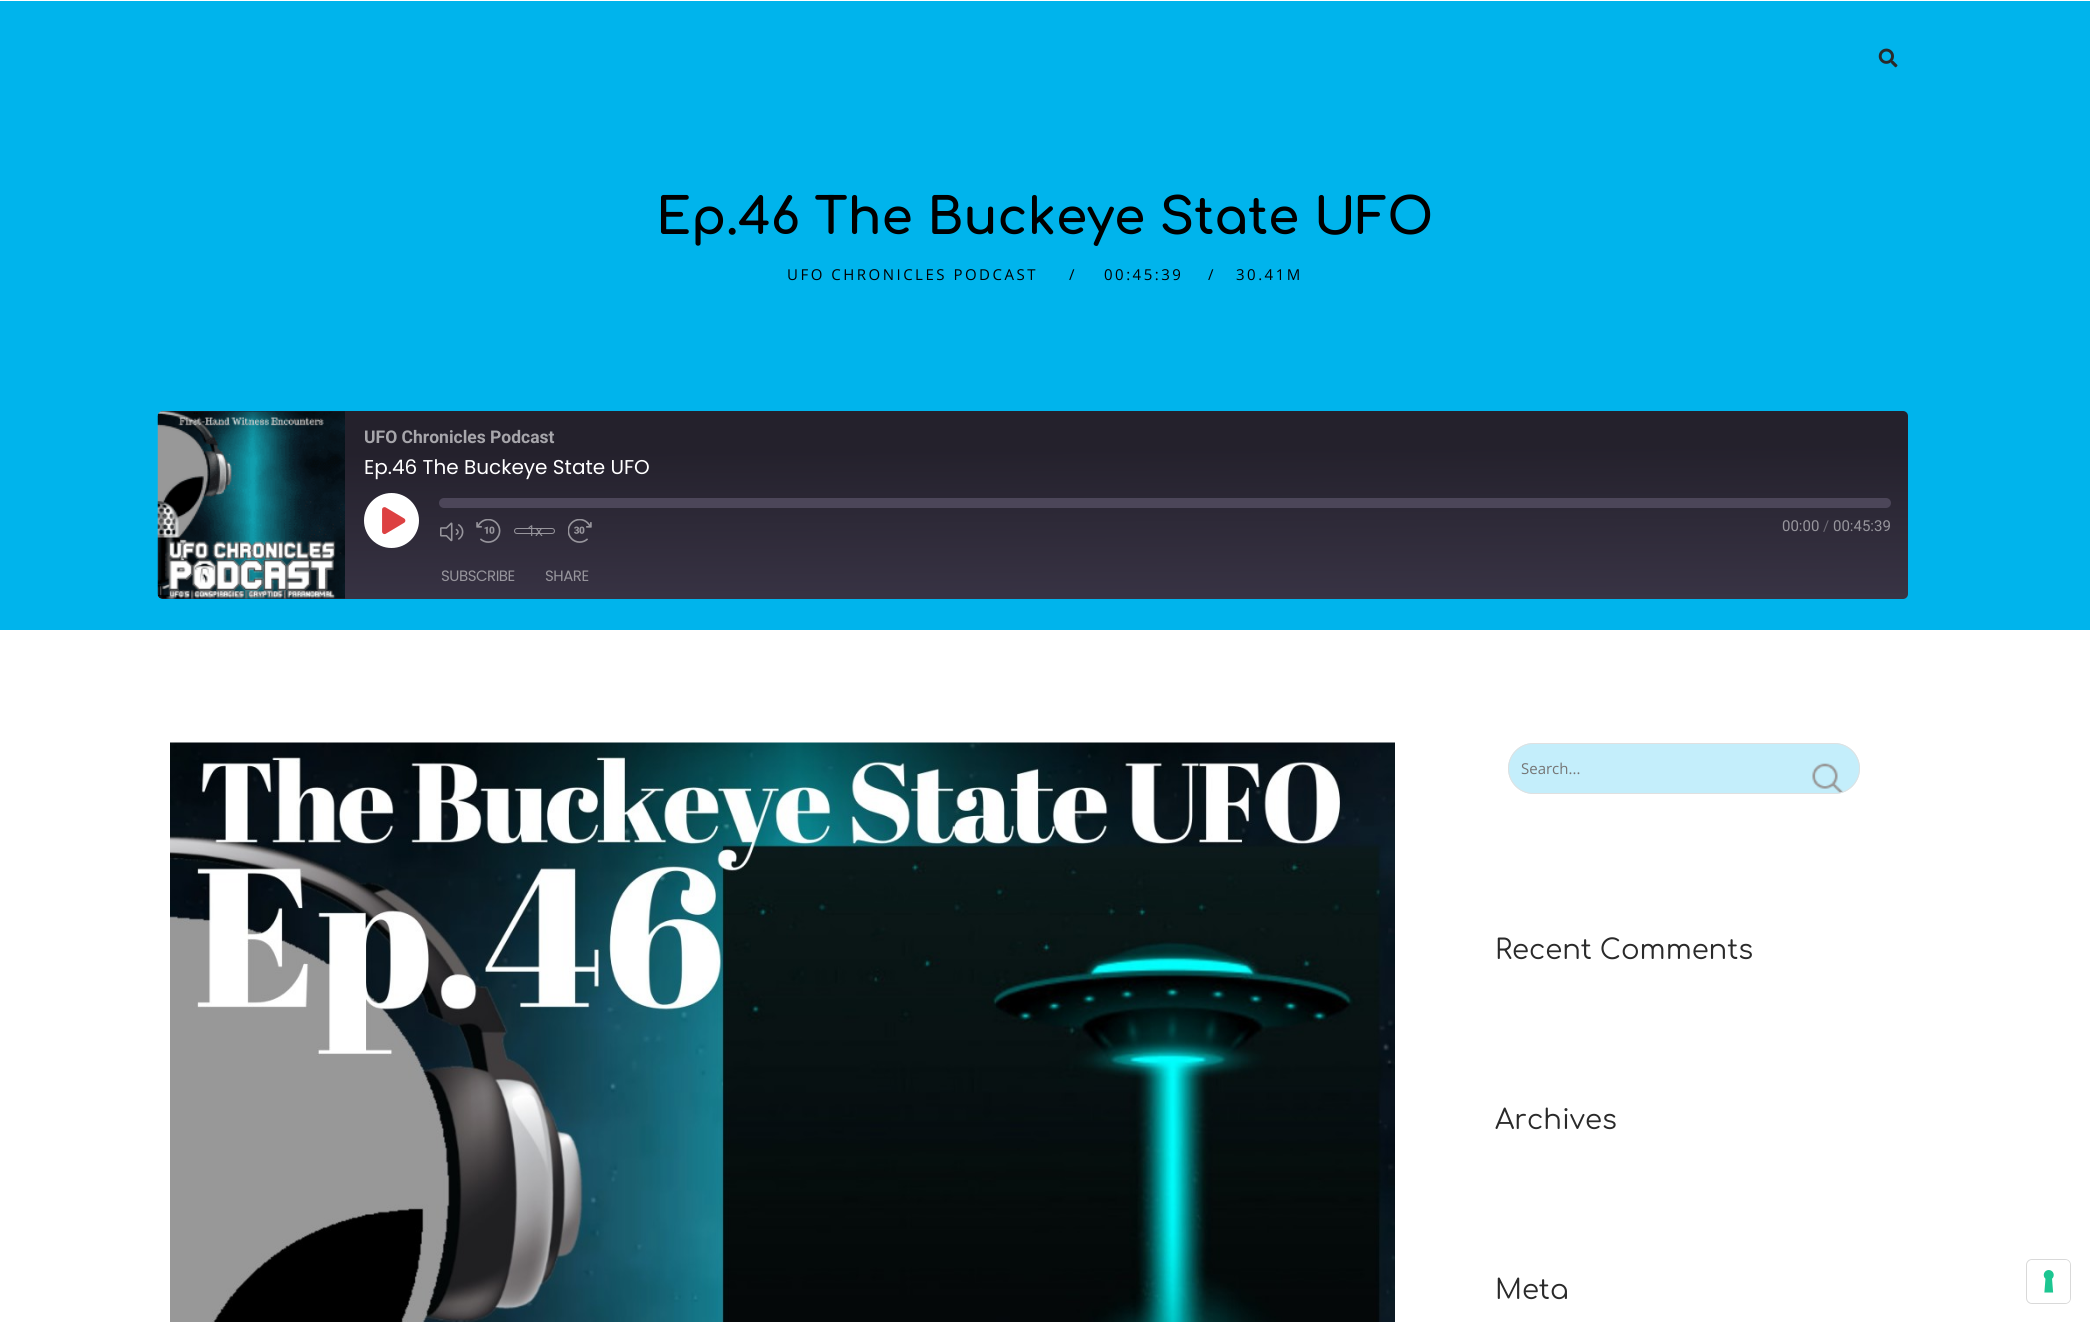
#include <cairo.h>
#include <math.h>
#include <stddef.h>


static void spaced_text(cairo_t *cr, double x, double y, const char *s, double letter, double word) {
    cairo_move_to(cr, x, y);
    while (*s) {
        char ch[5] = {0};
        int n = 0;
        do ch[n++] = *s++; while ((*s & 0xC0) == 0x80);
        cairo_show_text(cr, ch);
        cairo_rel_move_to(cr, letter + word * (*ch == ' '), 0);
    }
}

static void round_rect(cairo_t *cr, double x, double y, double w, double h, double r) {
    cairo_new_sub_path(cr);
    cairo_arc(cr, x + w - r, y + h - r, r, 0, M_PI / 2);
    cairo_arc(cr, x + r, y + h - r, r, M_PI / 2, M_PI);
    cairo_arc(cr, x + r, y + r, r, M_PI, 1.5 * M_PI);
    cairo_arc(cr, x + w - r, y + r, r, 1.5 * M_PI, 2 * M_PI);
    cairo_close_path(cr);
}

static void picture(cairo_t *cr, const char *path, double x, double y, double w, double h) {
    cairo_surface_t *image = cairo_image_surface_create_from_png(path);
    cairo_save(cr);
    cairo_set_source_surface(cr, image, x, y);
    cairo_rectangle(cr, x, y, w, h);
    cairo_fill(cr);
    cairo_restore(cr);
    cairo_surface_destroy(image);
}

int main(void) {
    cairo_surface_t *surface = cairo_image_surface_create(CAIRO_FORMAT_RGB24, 2090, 1322);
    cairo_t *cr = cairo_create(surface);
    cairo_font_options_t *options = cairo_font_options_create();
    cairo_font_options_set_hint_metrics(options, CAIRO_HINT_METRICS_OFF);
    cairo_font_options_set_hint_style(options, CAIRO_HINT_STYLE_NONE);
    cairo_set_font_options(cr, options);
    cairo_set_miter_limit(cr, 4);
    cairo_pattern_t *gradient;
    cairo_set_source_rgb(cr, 1, 1, 1);
    cairo_paint(cr);
    cairo_set_source_rgb(cr, 0, 0.706, 0.925);
    cairo_rectangle(cr, 0, 1, 2090, 629);
    cairo_fill(cr);
    picture(cr, "img1.png", 1878, 48, 20, 20);
    cairo_select_font_face(cr, "Comfortaa", CAIRO_FONT_SLANT_NORMAL, CAIRO_FONT_WEIGHT_BOLD);
    cairo_set_font_size(cr, 50);
    cairo_set_source_rgb(cr, 0, 0, 0);
    cairo_move_to(cr, 656, 234);
    cairo_show_text(cr, "Ep.46 The Buckeye State UFO");
    cairo_select_font_face(cr, "Open Sans", CAIRO_FONT_SLANT_NORMAL, CAIRO_FONT_WEIGHT_NORMAL);
    cairo_set_font_size(cr, 15);
    spaced_text(cr, 787, 280, "UFO CHRONICLES PODCAST", 2.5, 0);
    spaced_text(cr, 1069, 280, "/", 2.5, 0);
    spaced_text(cr, 1104, 280, "00:45:39", 2.5, 0);
    spaced_text(cr, 1208, 280, "/", 2.5, 0);
    spaced_text(cr, 1236, 280, "30.41M", 2.5, 0);
    gradient = cairo_pattern_create_linear(1033, 604, 1032, 406);
    cairo_pattern_add_color_stop_rgba(gradient, 0.01, 0.22, 0.2, 0.267, 1);
    cairo_pattern_add_color_stop_rgba(gradient, 0.78, 0.141, 0.129, 0.173, 1);
    cairo_set_source(cr, gradient);
    cairo_pattern_destroy(gradient);
    round_rect(cr, 158, 411, 1750, 188, 5);
    cairo_fill(cr);
    picture(cr, "img2.png", 157, 411, 188, 188);
    cairo_select_font_face(cr, "Roboto", CAIRO_FONT_SLANT_NORMAL, CAIRO_FONT_WEIGHT_BOLD);
    cairo_set_font_size(cr, 17.5);
    cairo_set_source_rgb(cr, 0.655, 0.651, 0.671);
    cairo_move_to(cr, 364, 443);
    cairo_show_text(cr, "UFO Chronicles Podcast");
    cairo_select_font_face(cr, "Poppins", CAIRO_FONT_SLANT_NORMAL, CAIRO_FONT_WEIGHT_NORMAL);
    cairo_set_font_size(cr, 20);
    cairo_set_source_rgb(cr, 1, 1, 1);
    cairo_move_to(cr, 364, 474);
    cairo_show_text(cr, "Ep.46 The Buckeye State UFO");
    cairo_new_path(cr);
    cairo_arc(cr, 391.5, 520.5, 27.5, 0, 2 * M_PI);
    cairo_fill(cr);
    picture(cr, "img3.png", 382, 507, 24, 28);
    cairo_set_source_rgb(cr, 0.298, 0.275, 0.349);
    round_rect(cr, 439, 498, 1452, 10, 5);
    cairo_fill(cr);
    picture(cr, "img4.png", 440, 522, 24, 20);
    picture(cr, "img5.png", 476, 519, 25, 24);
    round_rect(cr, 514.5, 528.5, 40, 5, 2.5);
    cairo_set_source_rgb(cr, 0.592, 0.584, 0.612);
    cairo_set_line_width(cr, 1);
    cairo_stroke(cr);
    cairo_select_font_face(cr, "Open Sans", CAIRO_FONT_SLANT_NORMAL, CAIRO_FONT_WEIGHT_NORMAL);
    cairo_set_font_size(cr, 15);
    spaced_text(cr, 527, 536, "1x", -0.5, 0);
    picture(cr, "img6.png", 568, 519, 24, 24);
    cairo_select_font_face(cr, "Roboto", CAIRO_FONT_SLANT_NORMAL, CAIRO_FONT_WEIGHT_NORMAL);
    cairo_move_to(cr, 1782, 531);
    cairo_show_text(cr, "00:00");
    cairo_set_source_rgb(cr, 0.427, 0.416, 0.455);
    cairo_move_to(cr, 1823, 531);
    cairo_show_text(cr, "/");
    cairo_set_source_rgb(cr, 0.592, 0.584, 0.612);
    cairo_move_to(cr, 1833, 531);
    cairo_show_text(cr, "00:45:39");
    cairo_select_font_face(cr, "Poppins", CAIRO_FONT_SLANT_NORMAL, CAIRO_FONT_WEIGHT_NORMAL);
    spaced_text(cr, 441, 581, "SUBSCRIBE", -0.5, 0);
    spaced_text(cr, 545, 581, "SHARE", -0.5, 0);
    picture(cr, "img7.png", 170, 742, 1225, 580);
    cairo_set_source_rgb(cr, 0.769, 0.933, 0.984);
    round_rect(cr, 1508, 743, 352, 51, 25.5);
    cairo_fill(cr);
    picture(cr, "img8.png", 1812, 763, 31, 30);
    round_rect(cr, 1508.5, 743.5, 351, 50, 25);
    cairo_set_source_rgb(cr, 0.878, 0.878, 0.878);
    cairo_stroke(cr);
    cairo_select_font_face(cr, "Open Sans", CAIRO_FONT_SLANT_NORMAL, CAIRO_FONT_WEIGHT_NORMAL);
    cairo_set_source_rgb(cr, 0.459, 0.459, 0.459);
    cairo_move_to(cr, 1521, 774);
    cairo_show_text(cr, "Search...");
    cairo_select_font_face(cr, "Comfortaa", CAIRO_FONT_SLANT_NORMAL, CAIRO_FONT_WEIGHT_NORMAL);
    cairo_set_font_size(cr, 27.5);
    cairo_set_source_rgb(cr, 0.165, 0.165, 0.165);
    cairo_move_to(cr, 1495, 959);
    cairo_show_text(cr, "Recent Comments");
    cairo_move_to(cr, 1495, 1129);
    cairo_show_text(cr, "Archives");
    cairo_move_to(cr, 1495, 1299);
    cairo_show_text(cr, "Meta");
    round_rect(cr, 2026.5, 1259.5, 44, 44, 5.5);
    cairo_set_source_rgb(cr, 0.851, 0.851, 0.851);
    cairo_stroke(cr);
    cairo_set_source_rgb(cr, 1, 1, 1);
    round_rect(cr, 2028, 1260, 42, 43, 5);
    cairo_fill(cr);
    picture(cr, "img9.png", 2043, 1270, 11, 23);
    cairo_surface_write_to_png(surface, "page.png");
    cairo_font_options_destroy(options);
    cairo_destroy(cr);
    cairo_surface_destroy(surface);
    return 0;
}
